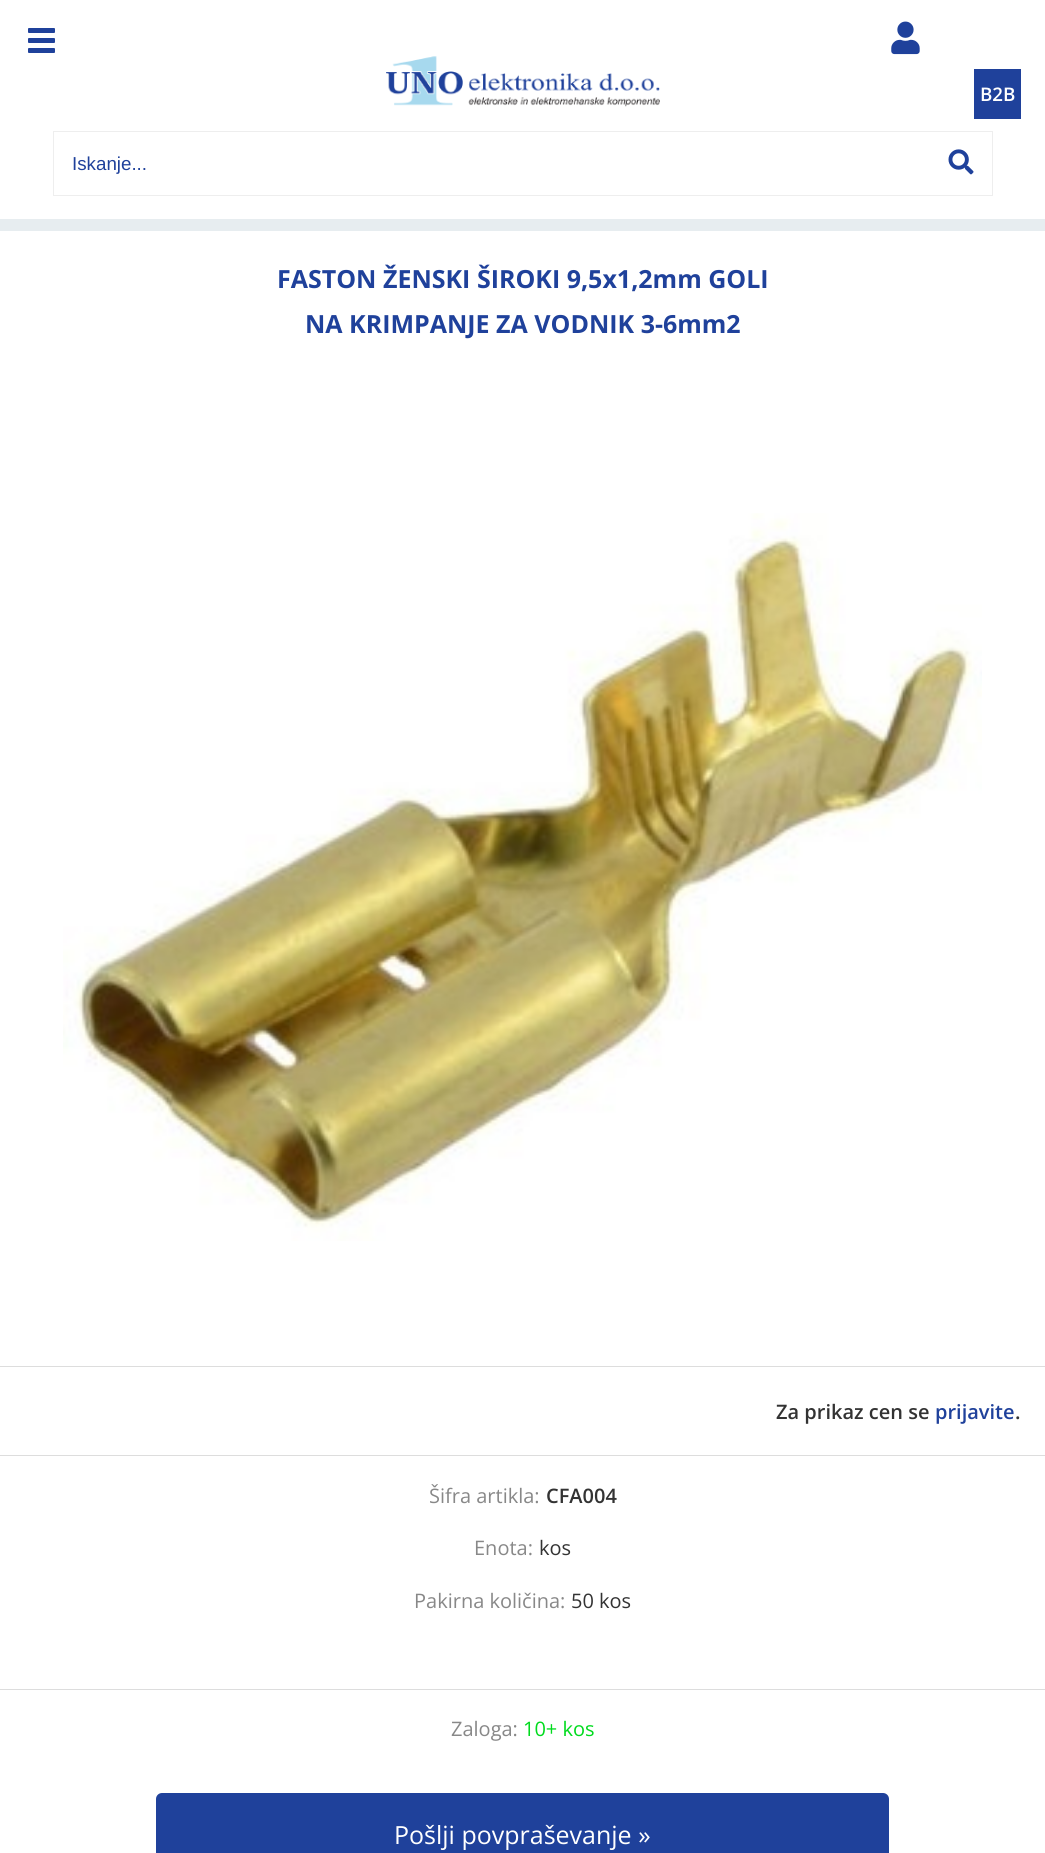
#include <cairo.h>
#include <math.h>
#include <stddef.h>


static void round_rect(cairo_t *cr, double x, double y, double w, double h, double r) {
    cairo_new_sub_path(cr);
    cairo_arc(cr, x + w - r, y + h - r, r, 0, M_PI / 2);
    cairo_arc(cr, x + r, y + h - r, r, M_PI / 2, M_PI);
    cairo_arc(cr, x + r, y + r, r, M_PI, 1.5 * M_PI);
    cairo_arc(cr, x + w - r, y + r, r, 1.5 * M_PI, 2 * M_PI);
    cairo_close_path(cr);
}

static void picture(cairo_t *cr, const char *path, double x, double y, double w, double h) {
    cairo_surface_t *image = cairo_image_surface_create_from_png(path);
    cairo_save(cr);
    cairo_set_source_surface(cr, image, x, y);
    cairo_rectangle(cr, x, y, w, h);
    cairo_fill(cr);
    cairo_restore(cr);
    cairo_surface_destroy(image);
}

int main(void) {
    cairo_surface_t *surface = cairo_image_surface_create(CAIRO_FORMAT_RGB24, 1045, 1853);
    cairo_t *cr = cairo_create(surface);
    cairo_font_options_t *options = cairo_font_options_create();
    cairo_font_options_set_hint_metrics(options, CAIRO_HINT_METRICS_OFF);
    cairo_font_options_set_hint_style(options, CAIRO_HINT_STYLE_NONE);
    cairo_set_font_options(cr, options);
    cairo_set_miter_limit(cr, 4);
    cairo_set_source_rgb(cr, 1, 1, 1);
    cairo_paint(cr);
    cairo_set_source_rgb(cr, 0.906, 0.929, 0.941);
    cairo_rectangle(cr, 0, 219, 1045, 12);
    cairo_fill(cr);
    picture(cr, "img1.png", 891, 21, 29, 34);
    cairo_set_source_rgb(cr, 0.122, 0.255, 0.608);
    round_rect(cr, 28, 28, 27, 5, 1);
    cairo_fill(cr);
    round_rect(cr, 28, 38, 27, 5, 1);
    cairo_fill(cr);
    round_rect(cr, 28, 48, 27, 5, 1);
    cairo_fill(cr);
    picture(cr, "img2.png", 386, 56, 274, 51);
    cairo_rectangle(cr, 974, 69, 47, 50);
    cairo_fill(cr);
    cairo_select_font_face(cr, "Open Sans SemiBold", CAIRO_FONT_SLANT_NORMAL, CAIRO_FONT_WEIGHT_NORMAL);
    cairo_set_font_size(cr, 18.75);
    cairo_set_source_rgb(cr, 1, 1, 1);
    cairo_move_to(cr, 980, 101);
    cairo_show_text(cr, "B2B");
    cairo_rectangle(cr, 53.5, 131.5, 939, 64);
    cairo_set_source_rgb(cr, 0.933, 0.933, 0.933);
    cairo_set_line_width(cr, 1);
    cairo_stroke(cr);
    cairo_select_font_face(cr, "Liberation Sans", CAIRO_FONT_SLANT_NORMAL, CAIRO_FONT_WEIGHT_NORMAL);
    cairo_set_source_rgb(cr, 0.122, 0.255, 0.608);
    cairo_move_to(cr, 72, 170);
    cairo_show_text(cr, "Iskanje...");
    picture(cr, "img3.png", 948, 149, 26, 26);
    cairo_select_font_face(cr, "Open Sans", CAIRO_FONT_SLANT_NORMAL, CAIRO_FONT_WEIGHT_BOLD);
    cairo_set_font_size(cr, 25);
    cairo_move_to(cr, 277, 288);
    cairo_show_text(cr, "FASTON ŽENSKI ŠIROKI 9,5x1,2mm GOLI");
    cairo_move_to(cr, 305, 333);
    cairo_show_text(cr, "NA KRIMPANJE ZA VODNIK 3-6mm2");
    picture(cr, "img4.png", 63, 513, 919, 728);
    cairo_set_source_rgb(cr, 0.867, 0.867, 0.867);
    cairo_rectangle(cr, 0, 1366, 1045, 1);
    cairo_fill(cr);
    cairo_rectangle(cr, 0, 1455, 1045, 1);
    cairo_fill(cr);
    cairo_select_font_face(cr, "Open Sans SemiBold", CAIRO_FONT_SLANT_NORMAL, CAIRO_FONT_WEIGHT_NORMAL);
    cairo_set_font_size(cr, 20);
    cairo_set_source_rgb(cr, 0.2, 0.2, 0.2);
    cairo_move_to(cr, 776, 1419);
    cairo_show_text(cr, "Za prikaz cen se");
    cairo_set_source_rgb(cr, 0.122, 0.255, 0.608);
    cairo_move_to(cr, 935, 1419);
    cairo_show_text(cr, "prijavite");
    cairo_set_source_rgb(cr, 0.2, 0.2, 0.2);
    cairo_move_to(cr, 1015, 1419);
    cairo_show_text(cr, ".");
    cairo_select_font_face(cr, "Open Sans", CAIRO_FONT_SLANT_NORMAL, CAIRO_FONT_WEIGHT_NORMAL);
    cairo_set_source_rgb(cr, 0.533, 0.533, 0.533);
    cairo_move_to(cr, 429, 1503);
    cairo_show_text(cr, "Šifra artikla:");
    cairo_select_font_face(cr, "Open Sans SemiBold", CAIRO_FONT_SLANT_NORMAL, CAIRO_FONT_WEIGHT_NORMAL);
    cairo_set_source_rgb(cr, 0.2, 0.2, 0.2);
    cairo_move_to(cr, 546, 1503);
    cairo_show_text(cr, "CFA004");
    cairo_select_font_face(cr, "Open Sans", CAIRO_FONT_SLANT_NORMAL, CAIRO_FONT_WEIGHT_NORMAL);
    cairo_set_source_rgb(cr, 0.533, 0.533, 0.533);
    cairo_move_to(cr, 474, 1555);
    cairo_show_text(cr, "Enota:");
    cairo_set_source_rgb(cr, 0.2, 0.2, 0.2);
    cairo_move_to(cr, 539, 1555);
    cairo_show_text(cr, "kos");
    cairo_set_source_rgb(cr, 0.533, 0.533, 0.533);
    cairo_move_to(cr, 414, 1608);
    cairo_show_text(cr, "Pakirna količina:");
    cairo_set_source_rgb(cr, 0.2, 0.2, 0.2);
    cairo_move_to(cr, 571, 1608);
    cairo_show_text(cr, "50 kos");
    cairo_set_source_rgb(cr, 0.867, 0.867, 0.867);
    cairo_rectangle(cr, 0, 1689, 1045, 1);
    cairo_fill(cr);
    cairo_set_source_rgb(cr, 0.533, 0.533, 0.533);
    cairo_move_to(cr, 451, 1736);
    cairo_show_text(cr, "Zaloga:");
    cairo_set_source_rgb(cr, 0, 0.859, 0.114);
    cairo_move_to(cr, 523, 1736);
    cairo_show_text(cr, "10+ kos");
    cairo_set_source_rgb(cr, 0.122, 0.255, 0.608);
    round_rect(cr, 156, 1793, 733, 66, 6);
    cairo_fill(cr);
    cairo_set_font_size(cr, 25);
    cairo_set_source_rgb(cr, 1, 1, 1);
    cairo_move_to(cr, 394, 1844);
    cairo_show_text(cr, "Pošlji povpraševanje »");
    cairo_surface_write_to_png(surface, "page.png");
    cairo_font_options_destroy(options);
    cairo_destroy(cr);
    cairo_surface_destroy(surface);
    return 0;
}
